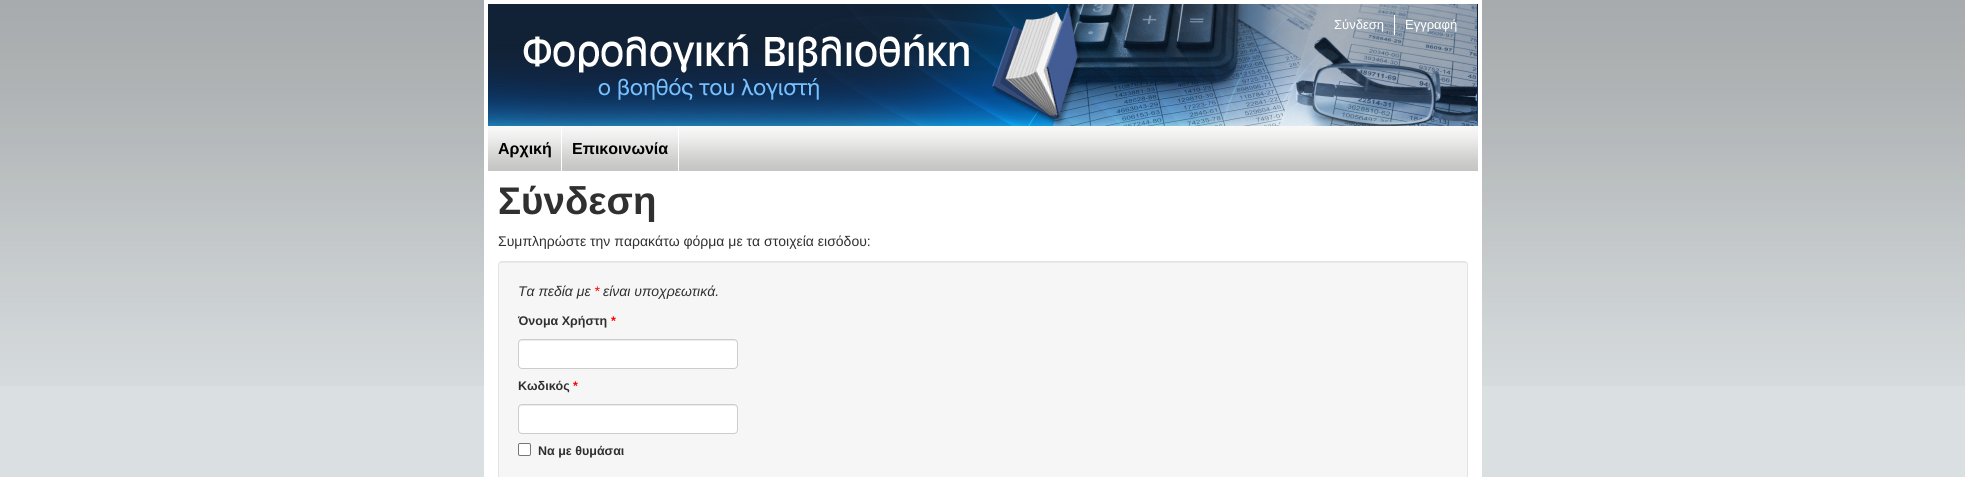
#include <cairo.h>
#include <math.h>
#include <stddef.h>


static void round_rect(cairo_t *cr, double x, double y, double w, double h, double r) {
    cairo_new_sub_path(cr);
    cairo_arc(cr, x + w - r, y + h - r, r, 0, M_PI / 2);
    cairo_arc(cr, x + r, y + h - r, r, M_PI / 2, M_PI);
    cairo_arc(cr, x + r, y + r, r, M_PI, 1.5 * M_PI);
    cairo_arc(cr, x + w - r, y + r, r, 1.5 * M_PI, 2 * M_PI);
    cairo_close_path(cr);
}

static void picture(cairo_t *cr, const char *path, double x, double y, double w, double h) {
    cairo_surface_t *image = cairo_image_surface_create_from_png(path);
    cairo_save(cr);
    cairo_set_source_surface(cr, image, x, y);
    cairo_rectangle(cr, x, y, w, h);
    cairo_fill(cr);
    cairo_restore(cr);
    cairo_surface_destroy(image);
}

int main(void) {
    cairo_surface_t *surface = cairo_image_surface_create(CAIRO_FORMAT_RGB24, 1965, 477);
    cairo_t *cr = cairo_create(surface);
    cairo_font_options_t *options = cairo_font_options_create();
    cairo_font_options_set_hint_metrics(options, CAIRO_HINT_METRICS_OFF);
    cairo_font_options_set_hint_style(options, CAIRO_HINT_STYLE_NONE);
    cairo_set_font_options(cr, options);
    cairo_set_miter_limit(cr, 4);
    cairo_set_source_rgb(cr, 0.855, 0.875, 0.882);
    cairo_paint(cr);
    picture(cr, "img1.png", 0, 0, 1965, 386);
    cairo_set_source_rgb(cr, 1, 1, 1);
    cairo_rectangle(cr, 484, 0, 998, 477);
    cairo_fill(cr);
    picture(cr, "img2.png", 488, 4, 990, 122);
    cairo_rectangle(cr, 1394, 15, 1, 20);
    cairo_fill(cr);
    cairo_select_font_face(cr, "Liberation Sans", CAIRO_FONT_SLANT_NORMAL, CAIRO_FONT_WEIGHT_NORMAL);
    cairo_set_font_size(cr, 13);
    cairo_move_to(cr, 1334, 29);
    cairo_show_text(cr, "Σύνδεση");
    cairo_move_to(cr, 1405, 29);
    cairo_show_text(cr, "Εγγραφή");
    picture(cr, "img3.png", 523, 34, 446, 66);
    picture(cr, "img4.png", 488, 126, 990, 45);
    cairo_rectangle(cr, 561, 126, 1, 45);
    cairo_fill(cr);
    cairo_select_font_face(cr, "Liberation Sans", CAIRO_FONT_SLANT_NORMAL, CAIRO_FONT_WEIGHT_BOLD);
    cairo_set_font_size(cr, 16);
    cairo_set_source_rgb(cr, 0, 0, 0);
    cairo_move_to(cr, 498, 154);
    cairo_show_text(cr, "Αρχική");
    cairo_set_source_rgb(cr, 1, 1, 1);
    cairo_rectangle(cr, 678, 126, 1, 45);
    cairo_fill(cr);
    cairo_set_source_rgb(cr, 0, 0, 0);
    cairo_move_to(cr, 572, 154);
    cairo_show_text(cr, "Επικοινωνία");
    cairo_set_font_size(cr, 38.5);
    cairo_set_source_rgb(cr, 0.188, 0.188, 0.188);
    cairo_move_to(cr, 498, 214);
    cairo_show_text(cr, "Σύνδεση");
    cairo_select_font_face(cr, "Liberation Sans", CAIRO_FONT_SLANT_NORMAL, CAIRO_FONT_WEIGHT_NORMAL);
    cairo_set_font_size(cr, 14);
    cairo_move_to(cr, 498, 246);
    cairo_show_text(cr, "Συμπληρώστε την παρακάτω φόρμα με τα στοιχεία εισόδου:");
    cairo_set_source_rgb(cr, 0.961, 0.961, 0.961);
    round_rect(cr, 498, 261, 970, 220, 4);
    cairo_fill(cr);
    cairo_set_source_rgb(cr, 0.914, 0.914, 0.914);
    cairo_new_path(cr);
    cairo_move_to(cr, 502, 263);
    cairo_line_to(cr, 1464, 263);
    cairo_curve_to(cr, 1466, 263, 1467, 264, 1467, 266);
    cairo_curve_to(cr, 1467, 264, 1466, 262, 1464, 262);
    cairo_line_to(cr, 502, 262);
    cairo_curve_to(cr, 500, 262, 499, 264, 499, 266);
    cairo_curve_to(cr, 499, 264, 500, 263, 502, 263);
    cairo_close_path(cr);
    cairo_fill(cr);
    round_rect(cr, 498.5, 261.5, 969, 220, 3.5);
    cairo_set_source_rgb(cr, 0.89, 0.89, 0.89);
    cairo_set_line_width(cr, 1);
    cairo_stroke(cr);
    cairo_select_font_face(cr, "Liberation Sans", CAIRO_FONT_SLANT_ITALIC, CAIRO_FONT_WEIGHT_NORMAL);
    cairo_set_source_rgb(cr, 0.188, 0.188, 0.188);
    cairo_move_to(cr, 518, 296);
    cairo_show_text(cr, "Τα πεδία με");
    cairo_set_source_rgb(cr, 1, 0, 0);
    cairo_move_to(cr, 594, 296);
    cairo_show_text(cr, "*");
    cairo_set_source_rgb(cr, 0.188, 0.188, 0.188);
    cairo_move_to(cr, 603, 296);
    cairo_show_text(cr, "είναι υποχρεωτικά.");
    cairo_select_font_face(cr, "Liberation Sans", CAIRO_FONT_SLANT_NORMAL, CAIRO_FONT_WEIGHT_BOLD);
    cairo_set_font_size(cr, 12.5);
    cairo_move_to(cr, 518, 325);
    cairo_show_text(cr, "Όνομα Χρήστη");
    cairo_set_source_rgb(cr, 1, 0, 0);
    cairo_move_to(cr, 611, 325);
    cairo_show_text(cr, "*");
    cairo_set_source_rgb(cr, 1, 1, 1);
    round_rect(cr, 518, 339, 220, 30, 4);
    cairo_fill(cr);
    cairo_set_source_rgb(cr, 0.925, 0.925, 0.925);
    cairo_new_path(cr);
    cairo_move_to(cr, 522, 341);
    cairo_line_to(cr, 734, 341);
    cairo_curve_to(cr, 736, 341, 737, 342, 737, 344);
    cairo_line_to(cr, 737, 343);
    cairo_curve_to(cr, 737, 341, 736, 340, 734, 340);
    cairo_line_to(cr, 522, 340);
    cairo_curve_to(cr, 520, 340, 519, 341, 519, 343);
    cairo_line_to(cr, 519, 344);
    cairo_curve_to(cr, 519, 342, 520, 341, 522, 341);
    cairo_close_path(cr);
    cairo_fill(cr);
    round_rect(cr, 518.5, 339.5, 219, 29, 3.5);
    cairo_set_source_rgb(cr, 0.8, 0.8, 0.8);
    cairo_stroke(cr);
    cairo_set_source_rgb(cr, 0.188, 0.188, 0.188);
    cairo_move_to(cr, 518, 390);
    cairo_show_text(cr, "Κωδικός");
    cairo_set_source_rgb(cr, 1, 0, 0);
    cairo_move_to(cr, 573, 390);
    cairo_show_text(cr, "*");
    cairo_set_source_rgb(cr, 1, 1, 1);
    round_rect(cr, 518, 404, 220, 30, 4);
    cairo_fill(cr);
    cairo_set_source_rgb(cr, 0.925, 0.925, 0.925);
    cairo_new_path(cr);
    cairo_move_to(cr, 522, 406);
    cairo_line_to(cr, 734, 406);
    cairo_curve_to(cr, 736, 406, 737, 407, 737, 409);
    cairo_line_to(cr, 737, 408);
    cairo_curve_to(cr, 737, 406, 736, 405, 734, 405);
    cairo_line_to(cr, 522, 405);
    cairo_curve_to(cr, 520, 405, 519, 406, 519, 408);
    cairo_line_to(cr, 519, 409);
    cairo_curve_to(cr, 519, 407, 520, 406, 522, 406);
    cairo_close_path(cr);
    cairo_fill(cr);
    round_rect(cr, 518.5, 404.5, 219, 29, 3.5);
    cairo_set_source_rgb(cr, 0.8, 0.8, 0.8);
    cairo_stroke(cr);
    cairo_set_source_rgb(cr, 1, 1, 1);
    round_rect(cr, 518.5, 443.5, 12, 12, 1.5);
    cairo_fill_preserve(cr);
    cairo_set_source_rgb(cr, 0.463, 0.463, 0.463);
    cairo_stroke(cr);
    cairo_set_source_rgb(cr, 0.188, 0.188, 0.188);
    cairo_move_to(cr, 538, 455);
    cairo_show_text(cr, "Να με θυμάσαι");
    cairo_surface_write_to_png(surface, "page.png");
    cairo_font_options_destroy(options);
    cairo_destroy(cr);
    cairo_surface_destroy(surface);
    return 0;
}
